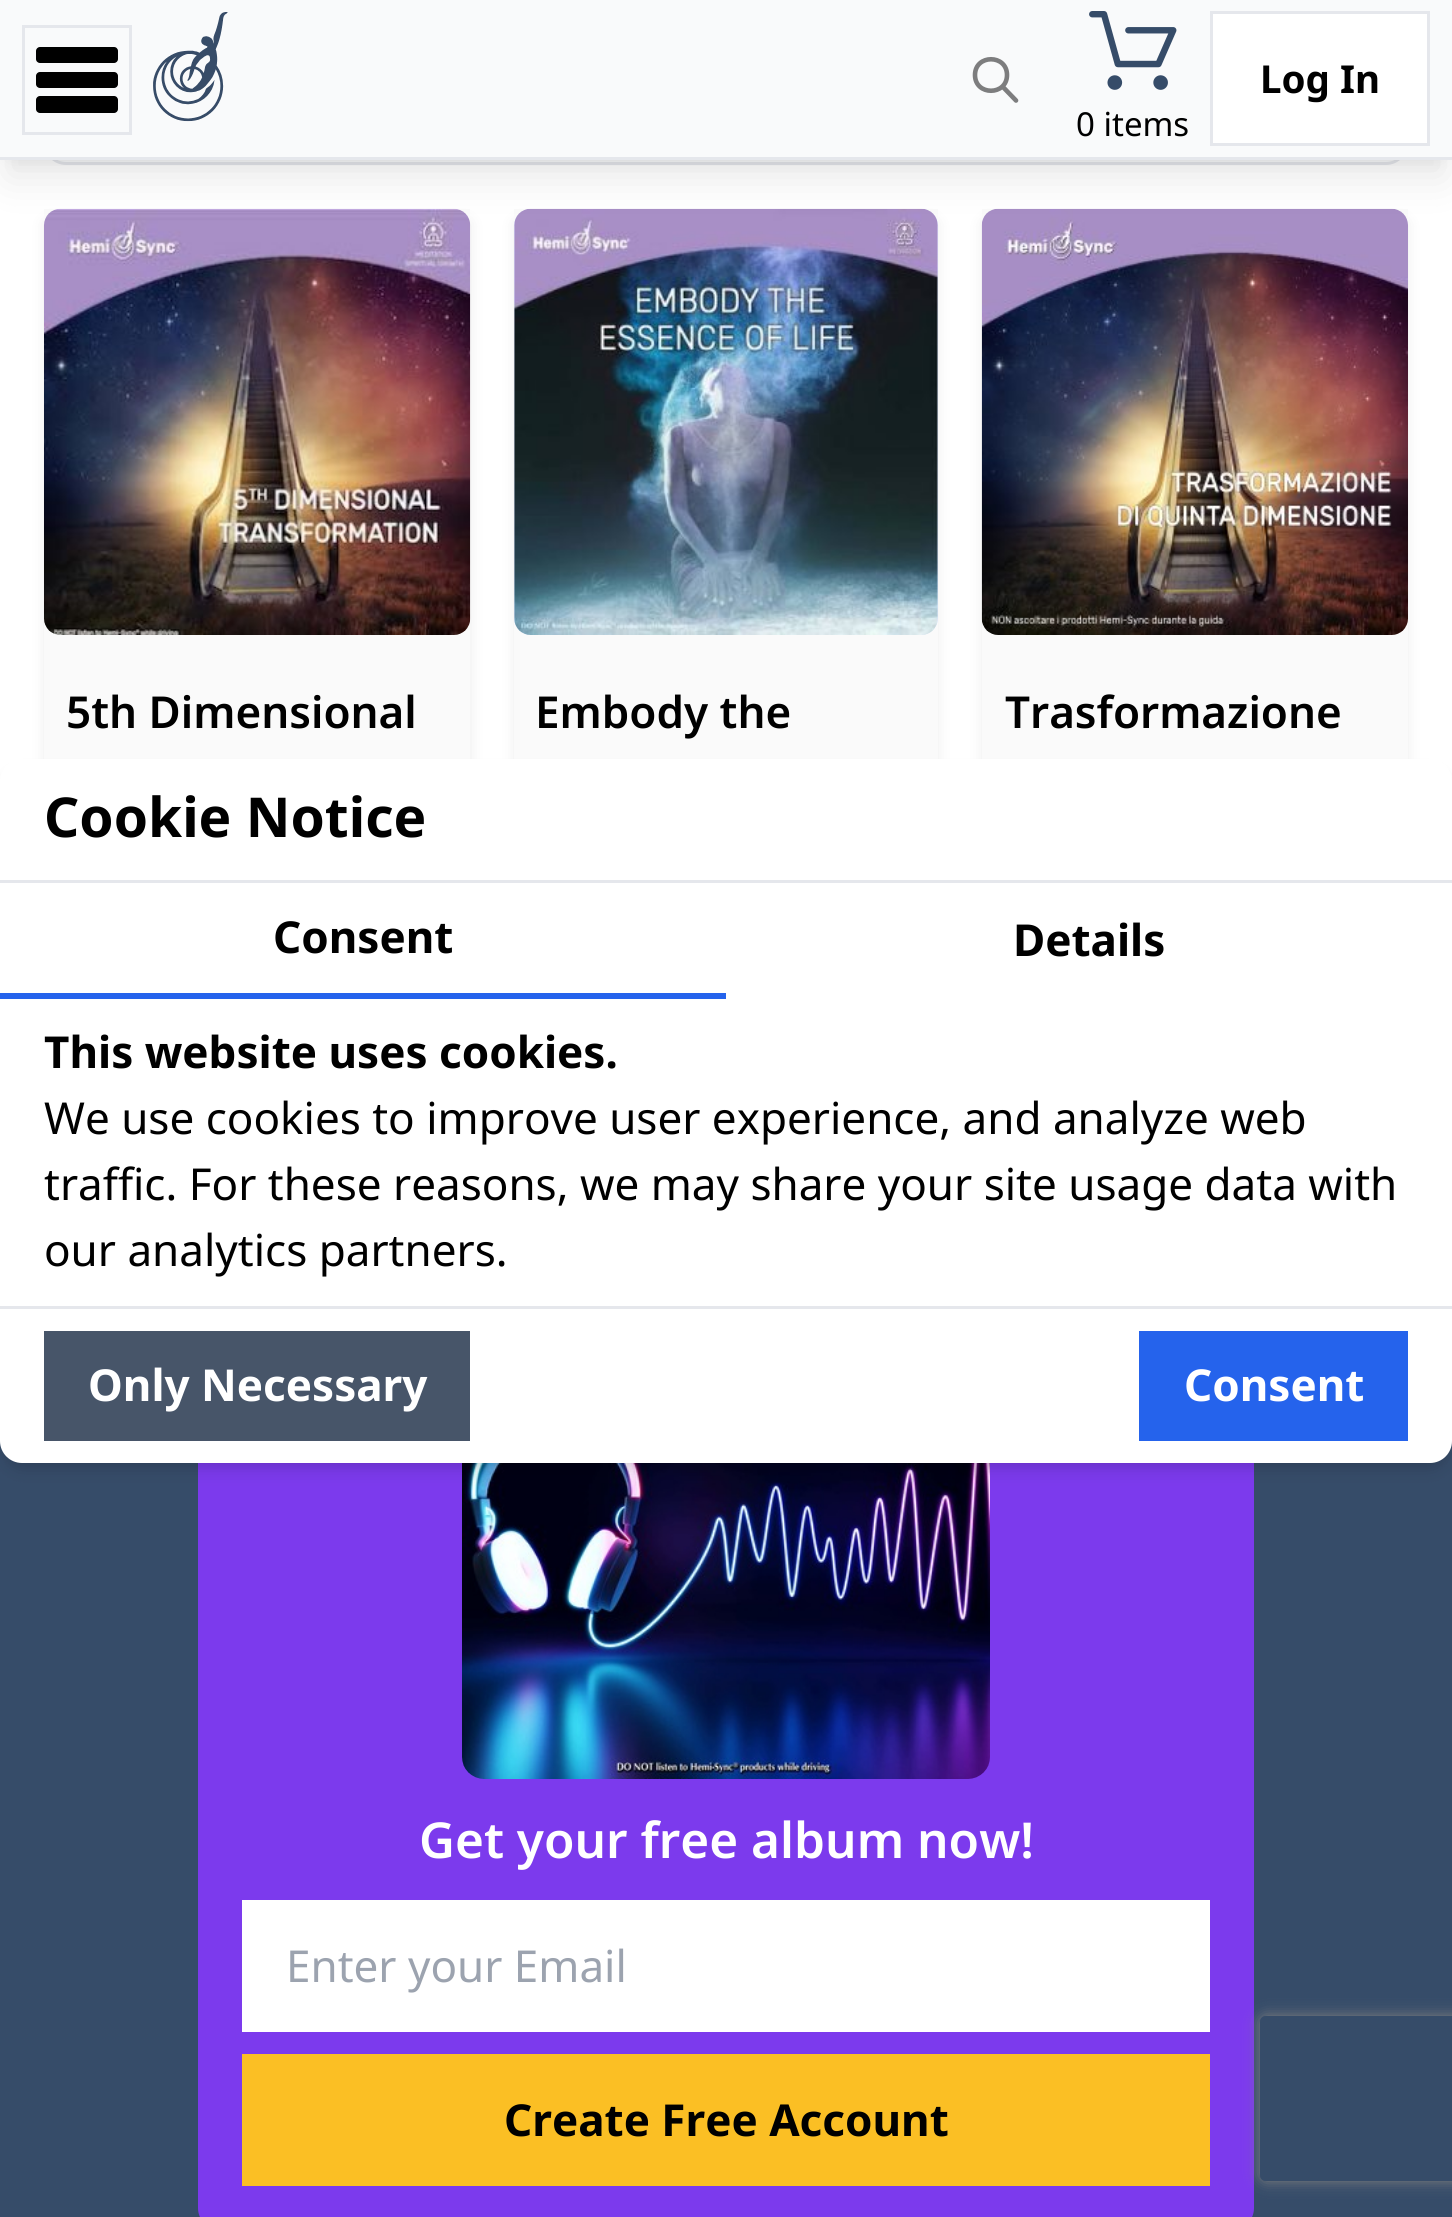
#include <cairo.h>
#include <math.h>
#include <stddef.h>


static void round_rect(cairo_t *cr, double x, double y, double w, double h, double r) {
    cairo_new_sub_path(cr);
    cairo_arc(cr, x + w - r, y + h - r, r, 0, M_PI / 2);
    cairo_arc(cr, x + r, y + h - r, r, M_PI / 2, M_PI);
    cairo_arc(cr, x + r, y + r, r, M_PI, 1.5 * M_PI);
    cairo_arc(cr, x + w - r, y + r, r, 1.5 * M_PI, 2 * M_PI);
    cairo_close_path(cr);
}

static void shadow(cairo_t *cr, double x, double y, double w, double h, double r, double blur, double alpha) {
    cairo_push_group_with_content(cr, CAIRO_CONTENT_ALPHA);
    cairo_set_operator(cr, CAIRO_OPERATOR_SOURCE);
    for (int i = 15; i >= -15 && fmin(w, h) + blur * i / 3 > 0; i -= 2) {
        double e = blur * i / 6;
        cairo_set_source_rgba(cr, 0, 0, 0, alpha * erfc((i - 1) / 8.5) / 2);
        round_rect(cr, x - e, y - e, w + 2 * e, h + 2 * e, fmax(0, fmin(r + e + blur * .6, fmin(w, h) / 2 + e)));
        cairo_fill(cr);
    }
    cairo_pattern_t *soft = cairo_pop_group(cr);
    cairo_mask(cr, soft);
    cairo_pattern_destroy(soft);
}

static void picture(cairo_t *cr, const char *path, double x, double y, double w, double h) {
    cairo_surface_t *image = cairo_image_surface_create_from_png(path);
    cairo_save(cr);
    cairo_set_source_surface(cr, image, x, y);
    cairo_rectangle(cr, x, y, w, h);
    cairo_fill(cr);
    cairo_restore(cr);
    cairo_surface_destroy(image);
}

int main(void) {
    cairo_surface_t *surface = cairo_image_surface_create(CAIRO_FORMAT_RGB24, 1452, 2217);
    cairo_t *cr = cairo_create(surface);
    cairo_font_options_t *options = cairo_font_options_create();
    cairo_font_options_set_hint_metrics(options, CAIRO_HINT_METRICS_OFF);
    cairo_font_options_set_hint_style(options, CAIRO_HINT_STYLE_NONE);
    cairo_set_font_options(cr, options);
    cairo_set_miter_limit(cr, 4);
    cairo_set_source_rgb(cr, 1, 1, 1);
    cairo_paint(cr);
    cairo_set_source_rgb(cr, 0.976, 0.98, 0.984);
    round_rect(cr, 45.5, -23.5, 1361, 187, 20.5);
    cairo_fill_preserve(cr);
    cairo_set_source_rgb(cr, 0.898, 0.906, 0.922);
    cairo_set_line_width(cr, 3);
    cairo_stroke(cr);
    cairo_set_source_rgb(cr, 0, 0, 0);
    shadow(cr, 11, 22, 1430, 135, 0, 8, 0.1);
    shadow(cr, 47, 223, 421, 905, 0, 8, 0.1);
    cairo_set_source_rgb(cr, 0.98, 0.98, 0.98);
    cairo_rectangle(cr, 44, 209, 426, 550);
    cairo_fill(cr);
    picture(cr, "img3.png", 44, 208, 427, 427);
    cairo_set_source_rgb(cr, 0, 0, 0);
    shadow(cr, 517, 223, 418, 905, 0, 8, 0.1);
    cairo_set_source_rgb(cr, 0.98, 0.98, 0.98);
    cairo_rectangle(cr, 514, 209, 424, 550);
    cairo_fill(cr);
    cairo_set_source_rgb(cr, 0.878, 0.906, 1);
    round_rect(cr, 514, 209, 424, 426, 17);
    cairo_fill(cr);
    picture(cr, "img4.png", 514, 208, 424, 427);
    cairo_set_source_rgb(cr, 0, 0, 0);
    shadow(cr, 985, 223, 420, 905, 0, 8, 0.1);
    cairo_set_source_rgb(cr, 0.98, 0.98, 0.98);
    cairo_rectangle(cr, 982, 209, 426, 550);
    cairo_fill(cr);
    picture(cr, "img5.png", 981, 208, 427, 427);
    cairo_set_source_rgb(cr, 0, 0, 0);
    shadow(cr, 8, 36, 1436, 140, 0, 20.5, 0.1);
    cairo_set_source_rgb(cr, 0.976, 0.98, 0.984);
    cairo_rectangle(cr, 0, 0, 1452, 157);
    cairo_fill(cr);
    cairo_set_source_rgb(cr, 0.898, 0.906, 0.922);
    cairo_rectangle(cr, 0, 157, 1452, 3);
    cairo_fill(cr);
    cairo_rectangle(cr, 23.5, 26.5, 107, 107);
    cairo_stroke(cr);
    cairo_set_source_rgb(cr, 0, 0, 0);
    round_rect(cr, 36, 47, 82, 16, 4);
    cairo_fill(cr);
    round_rect(cr, 36, 72, 82, 16, 4);
    cairo_fill(cr);
    round_rect(cr, 36, 96, 82, 17, 4);
    cairo_fill(cr);
    picture(cr, "img1.png", 153, 12, 75, 110);
    cairo_new_path(cr);
    cairo_move_to(cr, 1016, 100.5);
    cairo_line_to(cr, 1002.5, 86.5);
    cairo_move_to(cr, 1007, 75);
    cairo_curve_to(cr, 1007, 96, 975, 96, 975, 75);
    cairo_curve_to(cr, 975, 54, 1007, 54, 1007, 75);
    cairo_close_path(cr);
    cairo_set_source_rgb(cr, 0.49, 0.49, 0.494);
    cairo_set_line_width(cr, 4.6);
    cairo_set_line_cap(cr, CAIRO_LINE_CAP_ROUND);
    cairo_set_line_join(cr, CAIRO_LINE_JOIN_ROUND);
    cairo_stroke(cr);
    cairo_set_source_rgb(cr, 1, 1, 1);
    cairo_rectangle(cr, 1211.5, 12.5, 217, 132);
    cairo_fill_preserve(cr);
    cairo_set_source_rgb(cr, 0.898, 0.906, 0.922);
    cairo_set_line_width(cr, 3);
    cairo_set_line_cap(cr, CAIRO_LINE_CAP_BUTT);
    cairo_set_line_join(cr, CAIRO_LINE_JOIN_MITER);
    cairo_stroke(cr);
    cairo_select_font_face(cr, "Noto Sans", CAIRO_FONT_SLANT_NORMAL, CAIRO_FONT_WEIGHT_BOLD);
    cairo_set_font_size(cr, 38.5);
    cairo_set_source_rgb(cr, 0, 0, 0);
    cairo_move_to(cr, 1260, 93);
    cairo_show_text(cr, "Log In");
    picture(cr, "img2.png", 1089, 11, 88, 79);
    cairo_select_font_face(cr, "Noto Sans", CAIRO_FONT_SLANT_NORMAL, CAIRO_FONT_WEIGHT_NORMAL);
    cairo_set_font_size(cr, 33);
    cairo_move_to(cr, 1076, 136);
    cairo_show_text(cr, "0 items");
    cairo_select_font_face(cr, "Noto Sans SemiBold", CAIRO_FONT_SLANT_NORMAL, CAIRO_FONT_WEIGHT_NORMAL);
    cairo_set_font_size(cr, 44);
    cairo_move_to(cr, 66, 728);
    cairo_show_text(cr, "5th Dimensional");
    cairo_move_to(cr, 535, 728);
    cairo_show_text(cr, "Embody the");
    cairo_move_to(cr, 1005, 728);
    cairo_show_text(cr, "Trasformazione");
    cairo_set_source_rgb(cr, 0.212, 0.298, 0.412);
    cairo_rectangle(cr, 0, 1441, 1452, 776);
    cairo_fill(cr);
    cairo_set_source_rgb(cr, 0.486, 0.227, 0.929);
    round_rect(cr, 198, 1207, 1056, 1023, 22);
    cairo_fill(cr);
    picture(cr, "img6.png", 462, 1463, 528, 316);
    cairo_set_source_rgb(cr, 0, 0, 0);
    shadow(cr, 6, 770, 1441, 693, 17, 5.5, 0.1);
    shadow(cr, 3, 773, 1446, 698, 19, 8, 0.1);
    cairo_set_source_rgb(cr, 1, 1, 1);
    round_rect(cr, 0, 759, 1452, 704, 22);
    cairo_fill(cr);
    cairo_set_source_rgb(cr, 0.898, 0.906, 0.922);
    cairo_rectangle(cr, 0, 880, 1452, 3);
    cairo_fill(cr);
    cairo_select_font_face(cr, "Noto Sans", CAIRO_FONT_SLANT_NORMAL, CAIRO_FONT_WEIGHT_BOLD);
    cairo_set_font_size(cr, 55);
    cairo_set_source_rgb(cr, 0, 0, 0);
    cairo_move_to(cr, 44, 837);
    cairo_show_text(cr, "Cookie Notice");
    cairo_set_source_rgb(cr, 0.145, 0.388, 0.922);
    cairo_rectangle(cr, 0, 993, 726, 6);
    cairo_fill(cr);
    cairo_set_font_size(cr, 44);
    cairo_set_source_rgb(cr, 0, 0, 0);
    cairo_move_to(cr, 273, 953);
    cairo_show_text(cr, "Consent");
    cairo_move_to(cr, 1013, 956);
    cairo_show_text(cr, "Details");
    cairo_set_source_rgb(cr, 0.898, 0.906, 0.922);
    cairo_rectangle(cr, 0, 1306, 1452, 3);
    cairo_fill(cr);
    cairo_set_source_rgb(cr, 0, 0, 0);
    cairo_move_to(cr, 44, 1068);
    cairo_show_text(cr, "This website uses cookies.");
    cairo_select_font_face(cr, "Noto Sans", CAIRO_FONT_SLANT_NORMAL, CAIRO_FONT_WEIGHT_NORMAL);
    cairo_move_to(cr, 44, 1134);
    cairo_show_text(cr, "We use cookies to improve user experience, and analyze web");
    cairo_move_to(cr, 44, 1200);
    cairo_show_text(cr, "traffic. For these reasons, we may share your site usage data with");
    cairo_move_to(cr, 44, 1266);
    cairo_show_text(cr, "our analytics partners.");
    cairo_set_source_rgb(cr, 0.278, 0.333, 0.412);
    cairo_rectangle(cr, 44, 1331, 426, 110);
    cairo_fill(cr);
    cairo_select_font_face(cr, "Noto Sans", CAIRO_FONT_SLANT_NORMAL, CAIRO_FONT_WEIGHT_BOLD);
    cairo_set_source_rgb(cr, 1, 1, 1);
    cairo_move_to(cr, 88, 1401);
    cairo_show_text(cr, "Only Necessary");
    cairo_set_source_rgb(cr, 0.145, 0.388, 0.922);
    cairo_rectangle(cr, 1139, 1331, 269, 110);
    cairo_fill(cr);
    cairo_set_source_rgb(cr, 1, 1, 1);
    cairo_move_to(cr, 1184, 1401);
    cairo_show_text(cr, "Consent");
    cairo_select_font_face(cr, "Noto Sans SemiBold", CAIRO_FONT_SLANT_NORMAL, CAIRO_FONT_WEIGHT_NORMAL);
    cairo_set_font_size(cr, 49.5);
    cairo_move_to(cr, 419, 1858);
    cairo_show_text(cr, "Get your free album now!");
    cairo_rectangle(cr, 242, 1900, 968, 132);
    cairo_fill(cr);
    cairo_select_font_face(cr, "Noto Sans", CAIRO_FONT_SLANT_NORMAL, CAIRO_FONT_WEIGHT_NORMAL);
    cairo_set_font_size(cr, 44);
    cairo_set_source_rgb(cr, 0.612, 0.639, 0.686);
    cairo_move_to(cr, 286, 1982);
    cairo_show_text(cr, "Enter your Email");
    cairo_set_source_rgb(cr, 0.984, 0.749, 0.141);
    cairo_rectangle(cr, 242, 2054, 968, 132);
    cairo_fill(cr);
    cairo_select_font_face(cr, "Noto Sans", CAIRO_FONT_SLANT_NORMAL, CAIRO_FONT_WEIGHT_BOLD);
    cairo_set_source_rgb(cr, 0, 0, 0);
    cairo_move_to(cr, 504, 2136);
    cairo_show_text(cr, "Create Free Account");
    cairo_save(cr);
    cairo_set_fill_rule(cr, CAIRO_FILL_RULE_EVEN_ODD);
    cairo_new_path(cr);
    cairo_move_to(cr, 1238, 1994);
    cairo_line_to(cr, 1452, 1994);
    cairo_line_to(cr, 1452, 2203);
    cairo_line_to(cr, 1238, 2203);
    cairo_close_path(cr);
    cairo_move_to(cr, 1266, 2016);
    cairo_line_to(cr, 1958, 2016);
    cairo_curve_to(cr, 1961.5, 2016, 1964, 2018.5, 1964, 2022);
    cairo_line_to(cr, 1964, 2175);
    cairo_curve_to(cr, 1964, 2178.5, 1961.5, 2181, 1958, 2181);
    cairo_line_to(cr, 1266, 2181);
    cairo_curve_to(cr, 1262.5, 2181, 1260, 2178.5, 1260, 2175);
    cairo_line_to(cr, 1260, 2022);
    cairo_curve_to(cr, 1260, 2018.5, 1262.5, 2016, 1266, 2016);
    cairo_close_path(cr);
    cairo_clip(cr);
    cairo_set_source_rgb(cr, 0.502, 0.502, 0.502);
    shadow(cr, 1260, 2016, 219, 165, 6, 7, 1);
    cairo_restore(cr);
    cairo_surface_write_to_png(surface, "page.png");
    cairo_font_options_destroy(options);
    cairo_destroy(cr);
    cairo_surface_destroy(surface);
    return 0;
}
